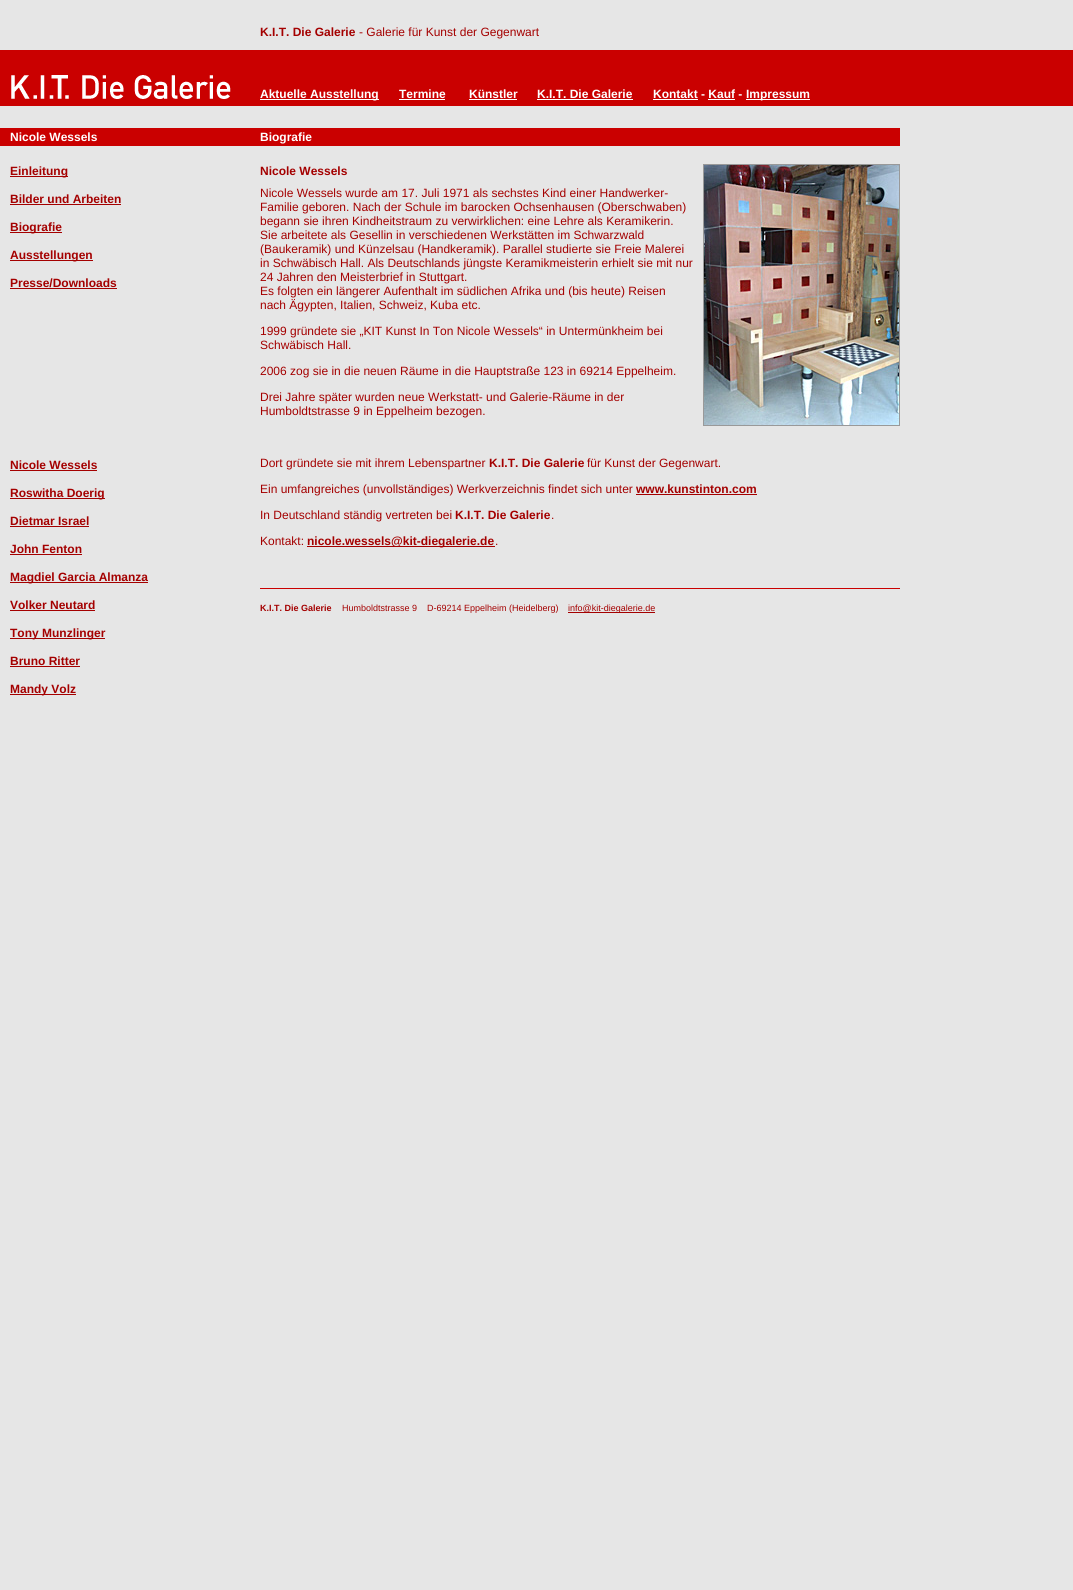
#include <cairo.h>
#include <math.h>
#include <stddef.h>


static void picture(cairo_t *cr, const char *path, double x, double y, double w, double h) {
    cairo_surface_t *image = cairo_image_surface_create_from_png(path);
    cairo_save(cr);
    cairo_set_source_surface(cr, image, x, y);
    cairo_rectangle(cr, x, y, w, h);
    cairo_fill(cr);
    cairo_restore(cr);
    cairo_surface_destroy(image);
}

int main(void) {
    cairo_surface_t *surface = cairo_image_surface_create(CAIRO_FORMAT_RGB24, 1073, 1590);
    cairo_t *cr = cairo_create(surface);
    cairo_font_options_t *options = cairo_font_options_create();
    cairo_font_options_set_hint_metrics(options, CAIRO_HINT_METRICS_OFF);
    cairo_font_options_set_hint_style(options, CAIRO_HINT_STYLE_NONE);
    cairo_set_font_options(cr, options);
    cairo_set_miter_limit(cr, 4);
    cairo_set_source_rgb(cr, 0.902, 0.902, 0.902);
    cairo_paint(cr);
    cairo_select_font_face(cr, "Liberation Sans", CAIRO_FONT_SLANT_NORMAL, CAIRO_FONT_WEIGHT_BOLD);
    cairo_set_font_size(cr, 12);
    cairo_set_source_rgb(cr, 0.643, 0, 0);
    cairo_move_to(cr, 260, 36);
    cairo_show_text(cr, "K.I.T. Die Galerie");
    cairo_select_font_face(cr, "Liberation Sans", CAIRO_FONT_SLANT_NORMAL, CAIRO_FONT_WEIGHT_NORMAL);
    cairo_move_to(cr, 359, 36);
    cairo_show_text(cr, "- Galerie für Kunst der Gegenwart");
    cairo_set_source_rgb(cr, 0.792, 0, 0);
    cairo_rectangle(cr, 0, 50, 1073, 56);
    cairo_fill(cr);
    picture(cr, "img1.png", 11, 75, 220, 24);
    cairo_set_source_rgb(cr, 1, 1, 1);
    cairo_rectangle(cr, 260, 99, 119, 1);
    cairo_fill(cr);
    cairo_select_font_face(cr, "Liberation Sans", CAIRO_FONT_SLANT_NORMAL, CAIRO_FONT_WEIGHT_BOLD);
    cairo_move_to(cr, 260, 98);
    cairo_show_text(cr, "Aktuelle Ausstellung");
    cairo_move_to(cr, 399, 98);
    cairo_show_text(cr, "Termine");
    cairo_rectangle(cr, 399, 99, 46, 1);
    cairo_fill(cr);
    cairo_move_to(cr, 469, 98);
    cairo_show_text(cr, "Künstler");
    cairo_rectangle(cr, 469, 99, 48, 1);
    cairo_fill(cr);
    cairo_move_to(cr, 537, 98);
    cairo_show_text(cr, "K.I.T. Die Galerie");
    cairo_rectangle(cr, 537, 99, 96, 1);
    cairo_fill(cr);
    cairo_move_to(cr, 653, 98);
    cairo_show_text(cr, "Kontakt - Kauf -");
    cairo_rectangle(cr, 653, 99, 45, 1);
    cairo_fill(cr);
    cairo_rectangle(cr, 746, 99, 64, 1);
    cairo_fill(cr);
    cairo_move_to(cr, 746, 98);
    cairo_show_text(cr, "Impressum");
    cairo_rectangle(cr, 708, 99, 27, 1);
    cairo_fill(cr);
    cairo_set_source_rgb(cr, 0.792, 0, 0);
    cairo_rectangle(cr, 0, 128, 900, 18);
    cairo_fill(cr);
    cairo_set_source_rgb(cr, 1, 1, 1);
    cairo_move_to(cr, 10, 141);
    cairo_show_text(cr, "Nicole Wessels");
    cairo_move_to(cr, 260, 141);
    cairo_show_text(cr, "Biografie");
    cairo_set_source_rgb(cr, 0.643, 0, 0);
    cairo_rectangle(cr, 10, 176, 58, 1);
    cairo_fill(cr);
    cairo_move_to(cr, 10, 175);
    cairo_show_text(cr, "Einleitung");
    cairo_move_to(cr, 10, 203);
    cairo_show_text(cr, "Bilder und Arbeiten");
    cairo_rectangle(cr, 10, 204, 111, 1);
    cairo_fill(cr);
    cairo_rectangle(cr, 10, 232, 52, 1);
    cairo_fill(cr);
    cairo_move_to(cr, 10, 231);
    cairo_show_text(cr, "Biografie");
    cairo_rectangle(cr, 10, 260, 83, 1);
    cairo_fill(cr);
    cairo_move_to(cr, 10, 259);
    cairo_show_text(cr, "Ausstellungen");
    cairo_move_to(cr, 10, 287);
    cairo_show_text(cr, "Presse/Downloads");
    cairo_rectangle(cr, 10, 288, 107, 1);
    cairo_fill(cr);
    cairo_move_to(cr, 10, 469);
    cairo_show_text(cr, "Nicole Wessels");
    cairo_rectangle(cr, 10, 470, 87, 1);
    cairo_fill(cr);
    cairo_rectangle(cr, 10, 498, 95, 1);
    cairo_fill(cr);
    cairo_move_to(cr, 10, 497);
    cairo_show_text(cr, "Roswitha Doerig");
    cairo_move_to(cr, 10, 525);
    cairo_show_text(cr, "Dietmar Israel");
    cairo_rectangle(cr, 10, 526, 79, 1);
    cairo_fill(cr);
    cairo_move_to(cr, 10, 553);
    cairo_show_text(cr, "John Fenton");
    cairo_rectangle(cr, 10, 554, 72, 1);
    cairo_fill(cr);
    cairo_rectangle(cr, 10, 582, 138, 1);
    cairo_fill(cr);
    cairo_move_to(cr, 10, 581);
    cairo_show_text(cr, "Magdiel Garcia Almanza");
    cairo_move_to(cr, 10, 609);
    cairo_show_text(cr, "Volker Neutard");
    cairo_rectangle(cr, 10, 610, 85, 1);
    cairo_fill(cr);
    cairo_rectangle(cr, 10, 638, 95, 1);
    cairo_fill(cr);
    cairo_move_to(cr, 10, 637);
    cairo_show_text(cr, "Tony Munzlinger");
    cairo_move_to(cr, 10, 665);
    cairo_show_text(cr, "Bruno Ritter");
    cairo_rectangle(cr, 10, 666, 70, 1);
    cairo_fill(cr);
    cairo_rectangle(cr, 10, 694, 66, 1);
    cairo_fill(cr);
    cairo_move_to(cr, 10, 693);
    cairo_show_text(cr, "Mandy Volz");
    cairo_move_to(cr, 260, 175);
    cairo_show_text(cr, "Nicole Wessels");
    cairo_rectangle(cr, 703.5, 164.5, 196, 261);
    cairo_set_source_rgb(cr, 0.6, 0.6, 0.6);
    cairo_set_line_width(cr, 1);
    cairo_stroke(cr);
    picture(cr, "img2.png", 704, 165, 195, 260);
    cairo_select_font_face(cr, "Liberation Sans", CAIRO_FONT_SLANT_NORMAL, CAIRO_FONT_WEIGHT_NORMAL);
    cairo_set_source_rgb(cr, 0.643, 0, 0);
    cairo_move_to(cr, 260, 197);
    cairo_show_text(cr, "Nicole Wessels wurde am 17. Juli 1971 als sechstes Kind einer Handwerker-");
    cairo_move_to(cr, 260, 211);
    cairo_show_text(cr, "Familie geboren. Nach der Schule im barocken Ochsenhausen (Oberschwaben)");
    cairo_move_to(cr, 260, 225);
    cairo_show_text(cr, "begann sie ihren Kindheitstraum zu verwirklichen: eine Lehre als Keramikerin.");
    cairo_move_to(cr, 260, 239);
    cairo_show_text(cr, "Sie arbeitete als Gesellin in verschiedenen Werkstätten im Schwarzwald");
    cairo_move_to(cr, 260, 253);
    cairo_show_text(cr, "(Baukeramik) und Künzelsau (Handkeramik). Parallel studierte sie Freie Malerei");
    cairo_move_to(cr, 260, 267);
    cairo_show_text(cr, "in Schwäbisch Hall. Als Deutschlands jüngste Keramikmeisterin erhielt sie mit nur");
    cairo_move_to(cr, 260, 281);
    cairo_show_text(cr, "24 Jahren den Meisterbrief in Stuttgart.");
    cairo_move_to(cr, 260, 295);
    cairo_show_text(cr, "Es folgten ein längerer Aufenthalt im südlichen Afrika und (bis heute) Reisen");
    cairo_move_to(cr, 260, 309);
    cairo_show_text(cr, "nach Ägypten, Italien, Schweiz, Kuba etc.");
    cairo_move_to(cr, 260, 335);
    cairo_show_text(cr, "1999 gründete sie „KIT Kunst In Ton Nicole Wessels“ in Untermünkheim bei");
    cairo_move_to(cr, 260, 349);
    cairo_show_text(cr, "Schwäbisch Hall.");
    cairo_move_to(cr, 260, 375);
    cairo_show_text(cr, "2006 zog sie in die neuen Räume in die Hauptstraße 123 in 69214 Eppelheim.");
    cairo_move_to(cr, 260, 401);
    cairo_show_text(cr, "Drei Jahre später wurden neue Werkstatt- und Galerie-Räume in der");
    cairo_move_to(cr, 260, 415);
    cairo_show_text(cr, "Humboldtstrasse 9 in Eppelheim bezogen.");
    cairo_move_to(cr, 260, 467);
    cairo_show_text(cr, "Dort gründete sie mit ihrem Lebenspartner");
    cairo_select_font_face(cr, "Liberation Sans", CAIRO_FONT_SLANT_NORMAL, CAIRO_FONT_WEIGHT_BOLD);
    cairo_move_to(cr, 489, 467);
    cairo_show_text(cr, "K.I.T. Die Galerie");
    cairo_select_font_face(cr, "Liberation Sans", CAIRO_FONT_SLANT_NORMAL, CAIRO_FONT_WEIGHT_NORMAL);
    cairo_move_to(cr, 587, 467);
    cairo_show_text(cr, "für Kunst der Gegenwart.");
    cairo_move_to(cr, 260, 493);
    cairo_show_text(cr, "Ein umfangreiches (unvollständiges) Werkverzeichnis findet sich unter");
    cairo_select_font_face(cr, "Liberation Sans", CAIRO_FONT_SLANT_NORMAL, CAIRO_FONT_WEIGHT_BOLD);
    cairo_move_to(cr, 636, 493);
    cairo_show_text(cr, "www.kunstinton.com");
    cairo_rectangle(cr, 636, 494, 121, 1);
    cairo_fill(cr);
    cairo_select_font_face(cr, "Liberation Sans", CAIRO_FONT_SLANT_NORMAL, CAIRO_FONT_WEIGHT_NORMAL);
    cairo_move_to(cr, 260, 519);
    cairo_show_text(cr, "In Deutschland ständig vertreten bei");
    cairo_select_font_face(cr, "Liberation Sans", CAIRO_FONT_SLANT_NORMAL, CAIRO_FONT_WEIGHT_BOLD);
    cairo_move_to(cr, 455, 519);
    cairo_show_text(cr, "K.I.T. Die Galerie");
    cairo_select_font_face(cr, "Liberation Sans", CAIRO_FONT_SLANT_NORMAL, CAIRO_FONT_WEIGHT_NORMAL);
    cairo_move_to(cr, 551, 519);
    cairo_show_text(cr, ".");
    cairo_move_to(cr, 260, 545);
    cairo_show_text(cr, "Kontakt:");
    cairo_rectangle(cr, 307, 546, 188, 1);
    cairo_fill(cr);
    cairo_select_font_face(cr, "Liberation Sans", CAIRO_FONT_SLANT_NORMAL, CAIRO_FONT_WEIGHT_BOLD);
    cairo_move_to(cr, 307, 545);
    cairo_show_text(cr, "nicole.wessels@kit-diegalerie.de");
    cairo_select_font_face(cr, "Liberation Sans", CAIRO_FONT_SLANT_NORMAL, CAIRO_FONT_WEIGHT_NORMAL);
    cairo_move_to(cr, 495, 545);
    cairo_show_text(cr, ".");
    cairo_set_source_rgb(cr, 0.792, 0, 0);
    cairo_rectangle(cr, 260, 588, 640, 1);
    cairo_fill(cr);
    cairo_select_font_face(cr, "Liberation Sans", CAIRO_FONT_SLANT_NORMAL, CAIRO_FONT_WEIGHT_BOLD);
    cairo_set_font_size(cr, 9);
    cairo_set_source_rgb(cr, 0.643, 0, 0);
    cairo_move_to(cr, 260, 611);
    cairo_show_text(cr, "K.I.T. Die Galerie");
    cairo_select_font_face(cr, "Liberation Sans", CAIRO_FONT_SLANT_NORMAL, CAIRO_FONT_WEIGHT_NORMAL);
    cairo_move_to(cr, 342, 611);
    cairo_show_text(cr, "Humboldtstrasse 9    D-69214 Eppelheim (Heidelberg)");
    cairo_rectangle(cr, 568, 612, 87, 1);
    cairo_fill(cr);
    cairo_move_to(cr, 568, 611);
    cairo_show_text(cr, "info@kit-diegalerie.de");
    cairo_surface_write_to_png(surface, "page.png");
    cairo_font_options_destroy(options);
    cairo_destroy(cr);
    cairo_surface_destroy(surface);
    return 0;
}
